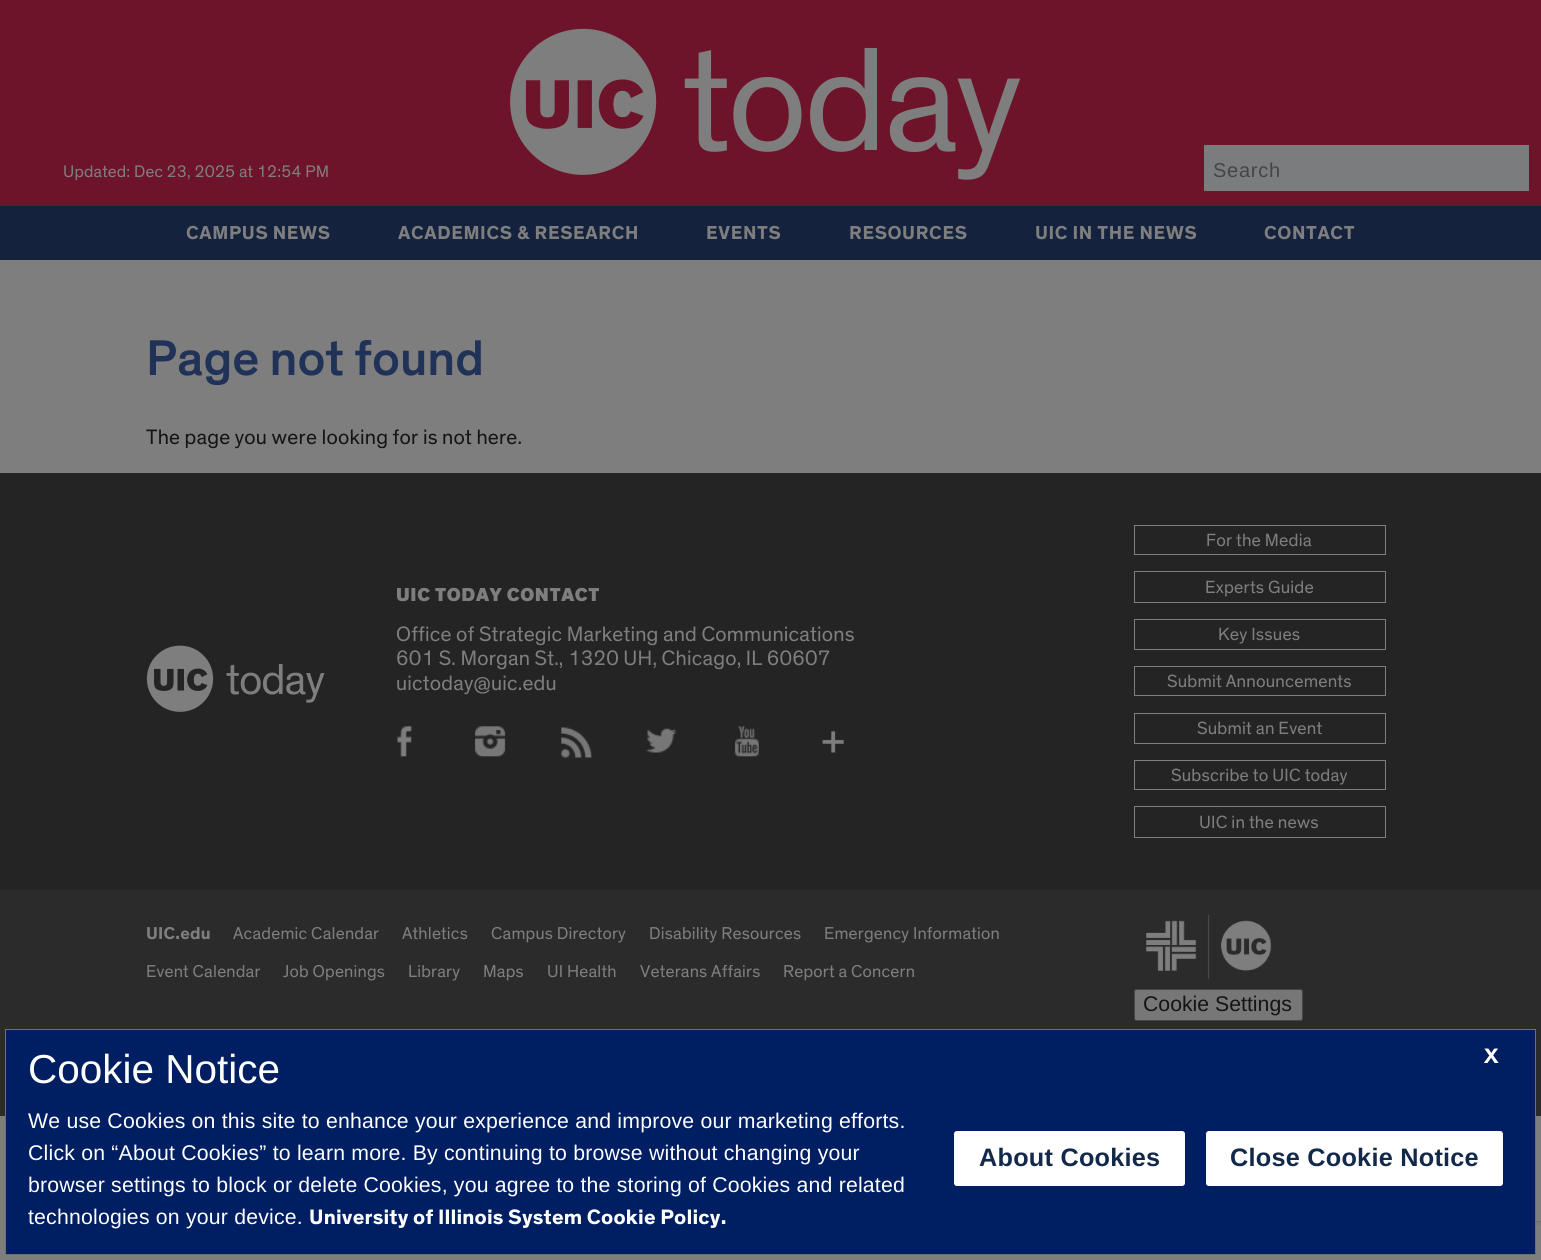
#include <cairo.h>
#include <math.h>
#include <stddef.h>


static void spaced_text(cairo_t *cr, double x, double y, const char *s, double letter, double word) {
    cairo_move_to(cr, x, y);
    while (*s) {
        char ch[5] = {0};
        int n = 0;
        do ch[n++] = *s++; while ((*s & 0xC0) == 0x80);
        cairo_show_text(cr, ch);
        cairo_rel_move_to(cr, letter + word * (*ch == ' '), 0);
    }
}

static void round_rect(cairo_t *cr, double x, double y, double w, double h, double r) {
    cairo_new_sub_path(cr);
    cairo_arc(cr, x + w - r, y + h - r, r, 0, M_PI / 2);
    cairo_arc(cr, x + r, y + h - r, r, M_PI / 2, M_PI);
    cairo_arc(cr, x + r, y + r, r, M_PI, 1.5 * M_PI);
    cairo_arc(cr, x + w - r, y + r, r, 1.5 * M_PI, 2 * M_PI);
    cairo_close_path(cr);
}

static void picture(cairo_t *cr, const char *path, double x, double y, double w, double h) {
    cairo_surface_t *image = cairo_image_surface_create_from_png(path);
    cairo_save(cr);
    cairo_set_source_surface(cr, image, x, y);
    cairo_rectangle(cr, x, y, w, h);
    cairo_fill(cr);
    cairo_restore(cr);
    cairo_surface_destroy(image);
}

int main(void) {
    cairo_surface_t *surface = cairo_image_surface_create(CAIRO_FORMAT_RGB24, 1541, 1260);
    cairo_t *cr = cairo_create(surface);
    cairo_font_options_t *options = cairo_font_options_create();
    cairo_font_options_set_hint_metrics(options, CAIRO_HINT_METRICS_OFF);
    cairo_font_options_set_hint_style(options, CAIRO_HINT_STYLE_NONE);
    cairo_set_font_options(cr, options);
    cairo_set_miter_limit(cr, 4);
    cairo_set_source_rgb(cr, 0.494, 0.494, 0.494);
    cairo_paint(cr);
    cairo_set_source_rgb(cr, 0.427, 0.082, 0.165);
    cairo_rectangle(cr, 0, 0, 1541, 206);
    cairo_fill(cr);
    cairo_select_font_face(cr, "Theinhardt", CAIRO_FONT_SLANT_NORMAL, CAIRO_FONT_WEIGHT_NORMAL);
    cairo_set_font_size(cr, 17);
    cairo_set_source_rgb(cr, 0.494, 0.494, 0.494);
    spaced_text(cr, 63, 177, "Updated: Dec 23, 2025 at 12:54 PM", 0.2, 0);
    picture(cr, "img1.png", 510, 28, 147, 147);
    cairo_set_font_size(cr, 150);
    spaced_text(cr, 683, 150, "today", -3, 0);
    cairo_set_source_rgb(cr, 0.482, 0.486, 0.494);
    cairo_rectangle(cr, 1204, 145, 325, 46);
    cairo_fill(cr);
    cairo_select_font_face(cr, "Liberation Sans", CAIRO_FONT_SLANT_NORMAL, CAIRO_FONT_WEIGHT_NORMAL);
    cairo_set_font_size(cr, 20);
    cairo_set_source_rgb(cr, 0.271, 0.271, 0.271);
    spaced_text(cr, 1213, 177, "Search", 0.75, 0);
    cairo_set_source_rgb(cr, 0.082, 0.133, 0.239);
    cairo_rectangle(cr, 0, 206, 1541, 54);
    cairo_fill(cr);
    cairo_select_font_face(cr, "Theinhardt", CAIRO_FONT_SLANT_NORMAL, CAIRO_FONT_WEIGHT_BOLD);
    cairo_set_font_size(cr, 19.1);
    cairo_set_source_rgb(cr, 0.494, 0.494, 0.494);
    spaced_text(cr, 186, 239, "CAMPUS NEWS", 0.6, 0);
    spaced_text(cr, 398, 239, "ACADEMICS & RESEARCH", 0.6, 0);
    spaced_text(cr, 706, 239, "EVENTS", 0.6, 0);
    spaced_text(cr, 849, 239, "RESOURCES", 0.6, 0);
    spaced_text(cr, 1035, 239, "UIC IN THE NEWS", 0.6, 0);
    spaced_text(cr, 1264, 239, "CONTACT", 0.6, 0);
    cairo_select_font_face(cr, "Theinhardt Medium", CAIRO_FONT_SLANT_NORMAL, CAIRO_FONT_WEIGHT_NORMAL);
    cairo_set_font_size(cr, 51);
    cairo_set_source_rgb(cr, 0.129, 0.196, 0.349);
    cairo_move_to(cr, 146, 375);
    cairo_show_text(cr, "Page not found");
    cairo_select_font_face(cr, "Theinhardt", CAIRO_FONT_SLANT_NORMAL, CAIRO_FONT_WEIGHT_NORMAL);
    cairo_set_font_size(cr, 21.25);
    cairo_set_source_rgb(cr, 0.082, 0.082, 0.082);
    spaced_text(cr, 146, 444, "The page you were looking for is not here.", 0.2, 0);
    cairo_set_source_rgb(cr, 0.141, 0.141, 0.141);
    cairo_rectangle(cr, 0, 473, 1541, 417);
    cairo_fill(cr);
    picture(cr, "img2.png", 146, 645, 68, 67);
    cairo_set_font_size(cr, 44);
    cairo_set_source_rgb(cr, 0.494, 0.494, 0.494);
    spaced_text(cr, 226, 694, "today", -1, 0);
    cairo_select_font_face(cr, "Theinhardt Black", CAIRO_FONT_SLANT_NORMAL, CAIRO_FONT_WEIGHT_NORMAL);
    cairo_set_font_size(cr, 19.1);
    spaced_text(cr, 396, 601, "UIC TODAY CONTACT", 0.6, 0);
    cairo_select_font_face(cr, "Theinhardt", CAIRO_FONT_SLANT_NORMAL, CAIRO_FONT_WEIGHT_NORMAL);
    cairo_set_font_size(cr, 21.25);
    spaced_text(cr, 396, 641, "Office of Strategic Marketing and Communications", 0.2, 0);
    spaced_text(cr, 396, 665, "601 S. Morgan St., 1320 UH, Chicago, IL 60607", 0.2, 0);
    spaced_text(cr, 396, 690, "uictoday@uic.edu", 0.2, 0);
    picture(cr, "img3.png", 397, 726, 15, 31);
    picture(cr, "img4.png", 474, 726, 32, 31);
    picture(cr, "img5.png", 561, 727, 31, 31);
    picture(cr, "img6.png", 646, 728, 31, 25);
    picture(cr, "img7.png", 734, 726, 25, 31);
    picture(cr, "img8.png", 822, 731, 22, 22);
    cairo_rectangle(cr, 1134.5, 525.5, 251, 29);
    cairo_set_line_width(cr, 1);
    cairo_stroke(cr);
    cairo_set_font_size(cr, 18);
    spaced_text(cr, 1206, 546, "For the Media", 0.2, 0);
    cairo_rectangle(cr, 1134.5, 571.5, 251, 31);
    cairo_stroke(cr);
    spaced_text(cr, 1205, 593, "Experts Guide", 0.2, 0);
    cairo_rectangle(cr, 1134.5, 619.5, 251, 30);
    cairo_stroke(cr);
    spaced_text(cr, 1218, 640, "Key Issues", 0.2, 0);
    cairo_rectangle(cr, 1134.5, 666.5, 251, 29);
    cairo_stroke(cr);
    spaced_text(cr, 1167, 687, "Submit Announcements", 0.2, 0);
    cairo_rectangle(cr, 1134.5, 713.5, 251, 30);
    cairo_stroke(cr);
    spaced_text(cr, 1197, 734, "Submit an Event", 0.2, 0);
    cairo_rectangle(cr, 1134.5, 760.5, 251, 29);
    cairo_stroke(cr);
    spaced_text(cr, 1171, 781, "Subscribe to UIC today", 0.2, 0);
    cairo_rectangle(cr, 1134.5, 806.5, 251, 31);
    cairo_stroke(cr);
    spaced_text(cr, 1199, 828, "UIC in the news", 0.2, 0);
    cairo_set_source_rgb(cr, 0.169, 0.169, 0.169);
    cairo_rectangle(cr, 0, 890, 1541, 226);
    cairo_fill(cr);
    cairo_select_font_face(cr, "Theinhardt", CAIRO_FONT_SLANT_NORMAL, CAIRO_FONT_WEIGHT_BOLD);
    cairo_set_font_size(cr, 17.5);
    cairo_set_source_rgb(cr, 0.494, 0.494, 0.494);
    spaced_text(cr, 146, 939, "UIC.edu", 0.2, 0);
    cairo_select_font_face(cr, "Theinhardt", CAIRO_FONT_SLANT_NORMAL, CAIRO_FONT_WEIGHT_NORMAL);
    spaced_text(cr, 233, 939, "Academic Calendar", 0.2, 0);
    spaced_text(cr, 402, 939, "Athletics", 0.2, 0);
    spaced_text(cr, 491, 939, "Campus Directory", 0.2, 0);
    spaced_text(cr, 649, 939, "Disability Resources", 0.2, 0);
    spaced_text(cr, 824, 939, "Emergency Information", 0.2, 0);
    spaced_text(cr, 146, 977, "Event Calendar", 0.2, 0);
    spaced_text(cr, 283, 977, "Job Openings", 0.2, 0);
    spaced_text(cr, 408, 977, "Library", 0.2, 0);
    spaced_text(cr, 483, 977, "Maps", 0.2, 0);
    spaced_text(cr, 547, 977, "UI Health", 0.2, 0);
    spaced_text(cr, 640, 977, "Veterans Affairs", 0.2, 0);
    spaced_text(cr, 783, 977, "Report a Concern", 0.2, 0);
    picture(cr, "img9.png", 1146, 915, 126, 64);
    cairo_set_source_rgb(cr, 0.467, 0.467, 0.467);
    round_rect(cr, 1134.5, 989.5, 168, 31, 2);
    cairo_fill_preserve(cr);
    cairo_set_source_rgb(cr, 0.275, 0.275, 0.275);
    cairo_stroke(cr);
    cairo_select_font_face(cr, "Liberation Sans", CAIRO_FONT_SLANT_NORMAL, CAIRO_FONT_WEIGHT_NORMAL);
    cairo_set_font_size(cr, 21.25);
    cairo_set_source_rgb(cr, 0.082, 0.082, 0.082);
    cairo_move_to(cr, 1143, 1011);
    cairo_show_text(cr, "Cookie Settings");
    cairo_set_source_rgb(cr, 0.478, 0.478, 0.478);
    cairo_rectangle(cr, 1528, 1222, 13, 3);
    cairo_fill(cr);
    cairo_set_source_rgb(cr, 0.431, 0.431, 0.431);
    cairo_rectangle(cr, 1528, 1221, 13, 1);
    cairo_fill(cr);
    cairo_set_source_rgb(cr, 0, 0.118, 0.384);
    cairo_rectangle(cr, 5.5, 1029.5, 1530, 225);
    cairo_fill_preserve(cr);
    cairo_set_source_rgb(cr, 0.439, 0.439, 0.439);
    cairo_stroke(cr);
    cairo_set_font_size(cr, 40.5);
    cairo_set_source_rgb(cr, 1, 1, 1);
    cairo_move_to(cr, 28, 1083);
    cairo_show_text(cr, "Cookie Notice");
    cairo_select_font_face(cr, "Theinhardt", CAIRO_FONT_SLANT_NORMAL, CAIRO_FONT_WEIGHT_BOLD);
    cairo_set_font_size(cr, 21.25);
    spaced_text(cr, 1484, 1063, "X", 0.2, 0);
    cairo_select_font_face(cr, "Liberation Sans", CAIRO_FONT_SLANT_NORMAL, CAIRO_FONT_WEIGHT_NORMAL);
    spaced_text(cr, 28, 1128, "We use Cookies on this site to enhance your experience and improve our marketing efforts.", 0.2, 0);
    spaced_text(cr, 28, 1160, "Click on “About Cookies” to learn more. By continuing to browse without changing your", 0.2, 0);
    spaced_text(cr, 28, 1192, "browser settings to block or delete Cookies, you agree to the storing of Cookies and related", 0.2, 0);
    spaced_text(cr, 28, 1224, "technologies on your device.", 0.2, 0);
    cairo_select_font_face(cr, "Theinhardt", CAIRO_FONT_SLANT_NORMAL, CAIRO_FONT_WEIGHT_BOLD);
    spaced_text(cr, 309, 1224, "University of Illinois System Cookie Policy.", 0.2, 0);
    round_rect(cr, 952.5, 1129.5, 234, 58, 4.5);
    cairo_fill_preserve(cr);
    cairo_set_source_rgb(cr, 0, 0.118, 0.384);
    cairo_set_line_width(cr, 3);
    cairo_stroke(cr);
    cairo_select_font_face(cr, "Liberation Sans", CAIRO_FONT_SLANT_NORMAL, CAIRO_FONT_WEIGHT_BOLD);
    cairo_set_font_size(cr, 25.25);
    cairo_set_source_rgb(cr, 0.075, 0.161, 0.294);
    spaced_text(cr, 979, 1166, "About Cookies", 0.25, 0);
    cairo_set_source_rgb(cr, 1, 1, 1);
    round_rect(cr, 1204.5, 1129.5, 300, 58, 4.5);
    cairo_fill_preserve(cr);
    cairo_set_source_rgb(cr, 0, 0.118, 0.384);
    cairo_stroke(cr);
    cairo_set_source_rgb(cr, 0.075, 0.161, 0.294);
    spaced_text(cr, 1230, 1166, "Close Cookie Notice", 0.25, 0);
    cairo_surface_write_to_png(surface, "page.png");
    cairo_font_options_destroy(options);
    cairo_destroy(cr);
    cairo_surface_destroy(surface);
    return 0;
}
